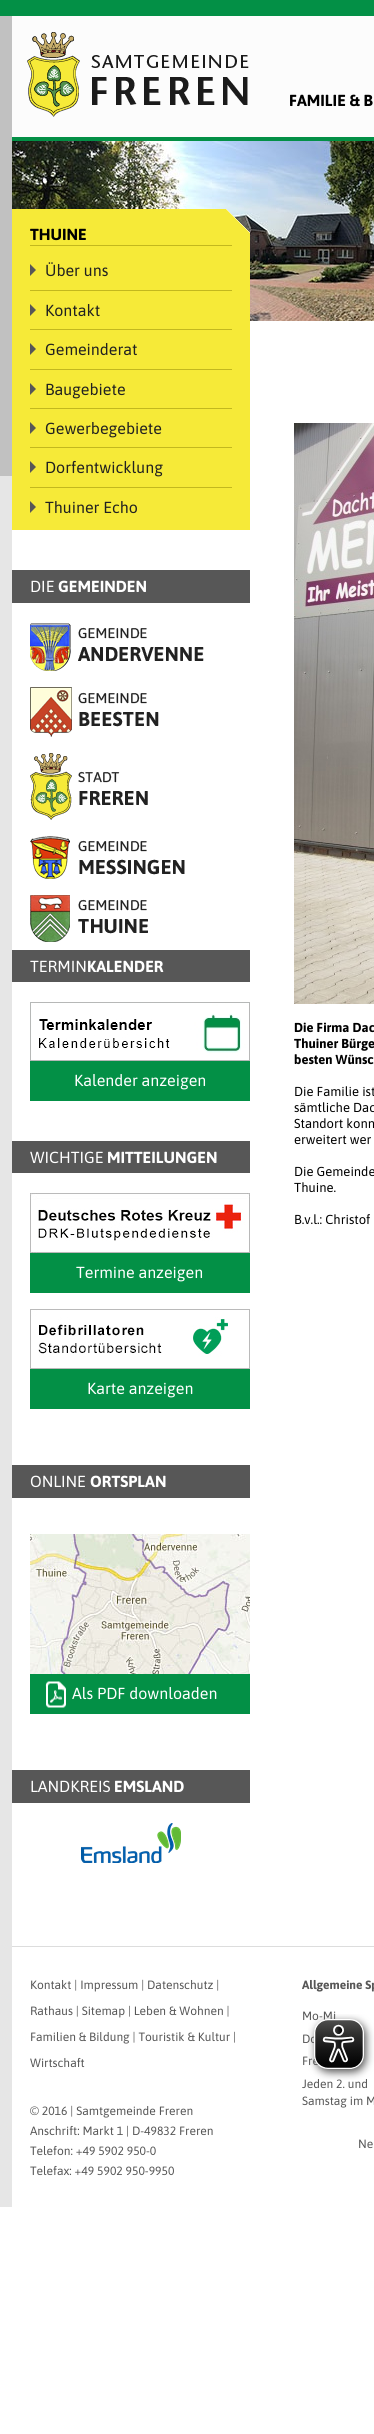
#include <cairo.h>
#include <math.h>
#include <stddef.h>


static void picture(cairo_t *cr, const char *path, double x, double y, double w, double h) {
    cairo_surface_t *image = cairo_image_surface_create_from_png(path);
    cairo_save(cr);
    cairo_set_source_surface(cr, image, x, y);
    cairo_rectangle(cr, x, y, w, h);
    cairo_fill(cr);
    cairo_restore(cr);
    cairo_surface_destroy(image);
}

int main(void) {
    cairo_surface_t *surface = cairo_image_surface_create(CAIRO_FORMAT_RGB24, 374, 2434);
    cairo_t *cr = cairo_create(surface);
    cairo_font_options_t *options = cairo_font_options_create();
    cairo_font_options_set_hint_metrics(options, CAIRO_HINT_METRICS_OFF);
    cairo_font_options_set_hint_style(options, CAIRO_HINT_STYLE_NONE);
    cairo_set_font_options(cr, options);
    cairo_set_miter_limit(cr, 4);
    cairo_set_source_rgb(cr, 1, 1, 1);
    cairo_paint(cr);
    cairo_set_source_rgb(cr, 0.902, 0.902, 0.902);
    cairo_rectangle(cr, 0, 476, 12, 1731);
    cairo_fill(cr);
    cairo_set_source_rgb(cr, 0.757, 0.757, 0.757);
    cairo_rectangle(cr, 0, 16, 12, 460);
    cairo_fill(cr);
    cairo_set_source_rgb(cr, 0.012, 0.565, 0.275);
    cairo_rectangle(cr, 0, 0, 374, 16);
    cairo_fill(cr);
    cairo_set_source_rgb(cr, 0.988, 0.988, 0.988);
    cairo_rectangle(cr, 12, 16, 362, 121);
    cairo_fill(cr);
    cairo_set_source_rgb(cr, 0.012, 0.565, 0.275);
    cairo_rectangle(cr, 12, 137, 362, 4);
    cairo_fill(cr);
    picture(cr, "img1.png", 27, 32, 222, 85);
    cairo_select_font_face(cr, "Asap", CAIRO_FONT_SLANT_NORMAL, CAIRO_FONT_WEIGHT_BOLD);
    cairo_set_font_size(cr, 16);
    cairo_set_source_rgb(cr, 0, 0, 0);
    cairo_move_to(cr, 289, 106);
    cairo_show_text(cr, "FAMILIE & B");
    picture(cr, "img2.png", 12, 141, 362, 180);
    picture(cr, "img3.png", 12, 209, 238, 321);
    cairo_set_source_rgb(cr, 0.765, 0.722, 0.118);
    cairo_rectangle(cr, 30, 245, 202, 1);
    cairo_fill(cr);
    cairo_set_source_rgb(cr, 0, 0, 0);
    cairo_move_to(cr, 30, 240);
    cairo_show_text(cr, "THUINE");
    picture(cr, "img4.png", 30, 264, 6, 12);
    cairo_set_source_rgb(cr, 0.765, 0.722, 0.118);
    cairo_rectangle(cr, 30, 290, 202, 1);
    cairo_fill(cr);
    cairo_select_font_face(cr, "Asap", CAIRO_FONT_SLANT_NORMAL, CAIRO_FONT_WEIGHT_NORMAL);
    cairo_set_source_rgb(cr, 0.129, 0.129, 0.129);
    cairo_move_to(cr, 45, 276);
    cairo_show_text(cr, "Über uns");
    picture(cr, "img4.png", 30, 304, 6, 12);
    cairo_set_source_rgb(cr, 0.765, 0.722, 0.118);
    cairo_rectangle(cr, 30, 329, 202, 1);
    cairo_fill(cr);
    cairo_set_source_rgb(cr, 0.129, 0.129, 0.129);
    cairo_move_to(cr, 45, 316);
    cairo_show_text(cr, "Kontakt");
    picture(cr, "img4.png", 30, 343, 6, 12);
    cairo_set_source_rgb(cr, 0.765, 0.722, 0.118);
    cairo_rectangle(cr, 30, 369, 202, 1);
    cairo_fill(cr);
    cairo_set_source_rgb(cr, 0.129, 0.129, 0.129);
    cairo_move_to(cr, 45, 355);
    cairo_show_text(cr, "Gemeinderat");
    picture(cr, "img4.png", 30, 383, 6, 12);
    cairo_set_source_rgb(cr, 0.765, 0.722, 0.118);
    cairo_rectangle(cr, 30, 408, 202, 1);
    cairo_fill(cr);
    cairo_set_source_rgb(cr, 0.129, 0.129, 0.129);
    cairo_move_to(cr, 45, 395);
    cairo_show_text(cr, "Baugebiete");
    picture(cr, "img4.png", 30, 422, 6, 12);
    cairo_set_source_rgb(cr, 0.765, 0.722, 0.118);
    cairo_rectangle(cr, 30, 447, 202, 1);
    cairo_fill(cr);
    cairo_set_source_rgb(cr, 0.129, 0.129, 0.129);
    cairo_move_to(cr, 45, 434);
    cairo_show_text(cr, "Gewerbegebiete");
    picture(cr, "img4.png", 30, 461, 6, 12);
    cairo_set_source_rgb(cr, 0.765, 0.722, 0.118);
    cairo_rectangle(cr, 30, 487, 202, 1);
    cairo_fill(cr);
    cairo_set_source_rgb(cr, 0.129, 0.129, 0.129);
    cairo_move_to(cr, 45, 473);
    cairo_show_text(cr, "Dorfentwicklung");
    picture(cr, "img4.png", 30, 501, 6, 12);
    cairo_move_to(cr, 45, 513);
    cairo_show_text(cr, "Thuiner Echo");
    cairo_set_source_rgb(cr, 0.341, 0.341, 0.341);
    cairo_rectangle(cr, 12, 570, 238, 33);
    cairo_fill(cr);
    cairo_set_source_rgb(cr, 1, 1, 1);
    cairo_move_to(cr, 30, 592);
    cairo_show_text(cr, "DIE");
    cairo_select_font_face(cr, "Asap", CAIRO_FONT_SLANT_NORMAL, CAIRO_FONT_WEIGHT_BOLD);
    cairo_move_to(cr, 58, 592);
    cairo_show_text(cr, "GEMEINDEN");
    picture(cr, "img5.png", 30, 623, 174, 48);
    picture(cr, "img6.png", 30, 687, 129, 50);
    picture(cr, "img7.png", 30, 753, 118, 67);
    picture(cr, "img8.png", 30, 836, 155, 43);
    picture(cr, "img9.png", 30, 895, 118, 47);
    cairo_set_source_rgb(cr, 0.341, 0.341, 0.341);
    cairo_rectangle(cr, 12, 950, 238, 32);
    cairo_fill(cr);
    cairo_select_font_face(cr, "Asap", CAIRO_FONT_SLANT_NORMAL, CAIRO_FONT_WEIGHT_NORMAL);
    cairo_set_source_rgb(cr, 1, 1, 1);
    cairo_move_to(cr, 30, 972);
    cairo_show_text(cr, "TERMIN");
    cairo_select_font_face(cr, "Asap", CAIRO_FONT_SLANT_NORMAL, CAIRO_FONT_WEIGHT_BOLD);
    cairo_move_to(cr, 87, 972);
    cairo_show_text(cr, "KALENDER");
    picture(cr, "img10.png", 30, 1002, 220, 59);
    cairo_set_source_rgb(cr, 0.012, 0.565, 0.275);
    cairo_rectangle(cr, 30, 1061, 220, 40);
    cairo_fill(cr);
    cairo_select_font_face(cr, "Asap", CAIRO_FONT_SLANT_NORMAL, CAIRO_FONT_WEIGHT_NORMAL);
    cairo_set_source_rgb(cr, 1, 1, 1);
    cairo_move_to(cr, 74, 1086);
    cairo_show_text(cr, "Kalender anzeigen");
    cairo_set_source_rgb(cr, 0.341, 0.341, 0.341);
    cairo_rectangle(cr, 12, 1141, 238, 32);
    cairo_fill(cr);
    cairo_set_source_rgb(cr, 1, 1, 1);
    cairo_move_to(cr, 30, 1163);
    cairo_show_text(cr, "WICHTIGE");
    cairo_select_font_face(cr, "Asap", CAIRO_FONT_SLANT_NORMAL, CAIRO_FONT_WEIGHT_BOLD);
    cairo_move_to(cr, 107, 1163);
    cairo_show_text(cr, "MITTEILUNGEN");
    picture(cr, "img11.png", 30, 1193, 220, 60);
    cairo_set_source_rgb(cr, 0.012, 0.565, 0.275);
    cairo_rectangle(cr, 30, 1253, 220, 40);
    cairo_fill(cr);
    cairo_select_font_face(cr, "Asap", CAIRO_FONT_SLANT_NORMAL, CAIRO_FONT_WEIGHT_NORMAL);
    cairo_set_source_rgb(cr, 1, 1, 1);
    cairo_move_to(cr, 76, 1278);
    cairo_show_text(cr, "Termine anzeigen");
    picture(cr, "img12.png", 30, 1309, 220, 60);
    cairo_set_source_rgb(cr, 0.012, 0.565, 0.275);
    cairo_rectangle(cr, 30, 1369, 220, 40);
    cairo_fill(cr);
    cairo_set_source_rgb(cr, 1, 1, 1);
    cairo_move_to(cr, 87, 1394);
    cairo_show_text(cr, "Karte anzeigen");
    cairo_set_source_rgb(cr, 0.341, 0.341, 0.341);
    cairo_rectangle(cr, 12, 1465, 238, 33);
    cairo_fill(cr);
    cairo_set_source_rgb(cr, 1, 1, 1);
    cairo_move_to(cr, 30, 1487);
    cairo_show_text(cr, "ONLINE");
    cairo_select_font_face(cr, "Asap", CAIRO_FONT_SLANT_NORMAL, CAIRO_FONT_WEIGHT_BOLD);
    cairo_move_to(cr, 90, 1487);
    cairo_show_text(cr, "ORTSPLAN");
    picture(cr, "img13.png", 30, 1534, 220, 140);
    cairo_set_source_rgb(cr, 0.012, 0.565, 0.275);
    cairo_rectangle(cr, 30, 1674, 220, 40);
    cairo_fill(cr);
    picture(cr, "img14.png", 45, 1681, 21, 27);
    cairo_select_font_face(cr, "Asap", CAIRO_FONT_SLANT_NORMAL, CAIRO_FONT_WEIGHT_NORMAL);
    cairo_set_source_rgb(cr, 1, 1, 1);
    cairo_move_to(cr, 72, 1699);
    cairo_show_text(cr, "Als PDF downloaden");
    cairo_set_source_rgb(cr, 0.341, 0.341, 0.341);
    cairo_rectangle(cr, 12, 1770, 238, 33);
    cairo_fill(cr);
    cairo_set_source_rgb(cr, 1, 1, 1);
    cairo_move_to(cr, 30, 1792);
    cairo_show_text(cr, "LANDKREIS");
    cairo_select_font_face(cr, "Asap", CAIRO_FONT_SLANT_NORMAL, CAIRO_FONT_WEIGHT_BOLD);
    cairo_move_to(cr, 114, 1792);
    cairo_show_text(cr, "EMSLAND");
    picture(cr, "img15.png", 81, 1823, 100, 40);
    picture(cr, "img16.png", 294, 423, 80, 581);
    cairo_set_font_size(cr, 13);
    cairo_set_source_rgb(cr, 0, 0, 0);
    cairo_move_to(cr, 294, 1032);
    cairo_show_text(cr, "Die Firma Dac");
    cairo_move_to(cr, 294, 1048);
    cairo_show_text(cr, "Thuiner Bürge");
    cairo_move_to(cr, 294, 1064);
    cairo_show_text(cr, "besten Wünsc");
    cairo_select_font_face(cr, "Asap", CAIRO_FONT_SLANT_NORMAL, CAIRO_FONT_WEIGHT_NORMAL);
    cairo_move_to(cr, 294, 1096);
    cairo_show_text(cr, "Die Familie ist");
    cairo_move_to(cr, 294, 1112);
    cairo_show_text(cr, "sämtliche Dac");
    cairo_move_to(cr, 294, 1128);
    cairo_show_text(cr, "Standort konn");
    cairo_move_to(cr, 294, 1144);
    cairo_show_text(cr, "erweitert wer");
    cairo_move_to(cr, 294, 1176);
    cairo_show_text(cr, "Die Gemeinde");
    cairo_move_to(cr, 294, 1192);
    cairo_show_text(cr, "Thuine.");
    cairo_move_to(cr, 294, 1224);
    cairo_show_text(cr, "B.v.l.: Christof");
    cairo_set_source_rgb(cr, 0.867, 0.867, 0.867);
    cairo_rectangle(cr, 12, 1946, 362, 1);
    cairo_fill(cr);
    cairo_set_font_size(cr, 12);
    cairo_set_source_rgb(cr, 0.341, 0.341, 0.341);
    cairo_move_to(cr, 30, 1989);
    cairo_show_text(cr, "Kontakt | Impressum | Datenschutz |");
    cairo_move_to(cr, 30, 2015);
    cairo_show_text(cr, "Rathaus | Sitemap | Leben & Wohnen |");
    cairo_move_to(cr, 30, 2041);
    cairo_show_text(cr, "Familien & Bildung | Touristik & Kultur |");
    cairo_move_to(cr, 30, 2067);
    cairo_show_text(cr, "Wirtschaft");
    cairo_move_to(cr, 30, 2115);
    cairo_show_text(cr, "© 2016 | Samtgemeinde Freren");
    cairo_move_to(cr, 30, 2135);
    cairo_show_text(cr, "Anschrift: Markt 1 | D-49832 Freren");
    cairo_move_to(cr, 30, 2155);
    cairo_show_text(cr, "Telefon: +49 5902 950-0");
    cairo_move_to(cr, 30, 2175);
    cairo_show_text(cr, "Telefax: +49 5902 950-9950");
    cairo_select_font_face(cr, "Asap", CAIRO_FONT_SLANT_NORMAL, CAIRO_FONT_WEIGHT_BOLD);
    cairo_move_to(cr, 302, 1989);
    cairo_show_text(cr, "Allgemeine Sp");
    cairo_select_font_face(cr, "Asap", CAIRO_FONT_SLANT_NORMAL, CAIRO_FONT_WEIGHT_NORMAL);
    cairo_move_to(cr, 302, 2020);
    cairo_show_text(cr, "Mo-Mi");
    cairo_move_to(cr, 302, 2043);
    cairo_show_text(cr, "Do");
    cairo_move_to(cr, 302, 2065);
    cairo_show_text(cr, "Fre");
    cairo_move_to(cr, 302, 2088);
    cairo_show_text(cr, "Jeden 2. und");
    cairo_move_to(cr, 302, 2105);
    cairo_show_text(cr, "Samstag im M");
    cairo_move_to(cr, 358, 2148);
    cairo_show_text(cr, "Ne");
    picture(cr, "img17.png", 308, 2014, 66, 66);
    cairo_surface_write_to_png(surface, "page.png");
    cairo_font_options_destroy(options);
    cairo_destroy(cr);
    cairo_surface_destroy(surface);
    return 0;
}
